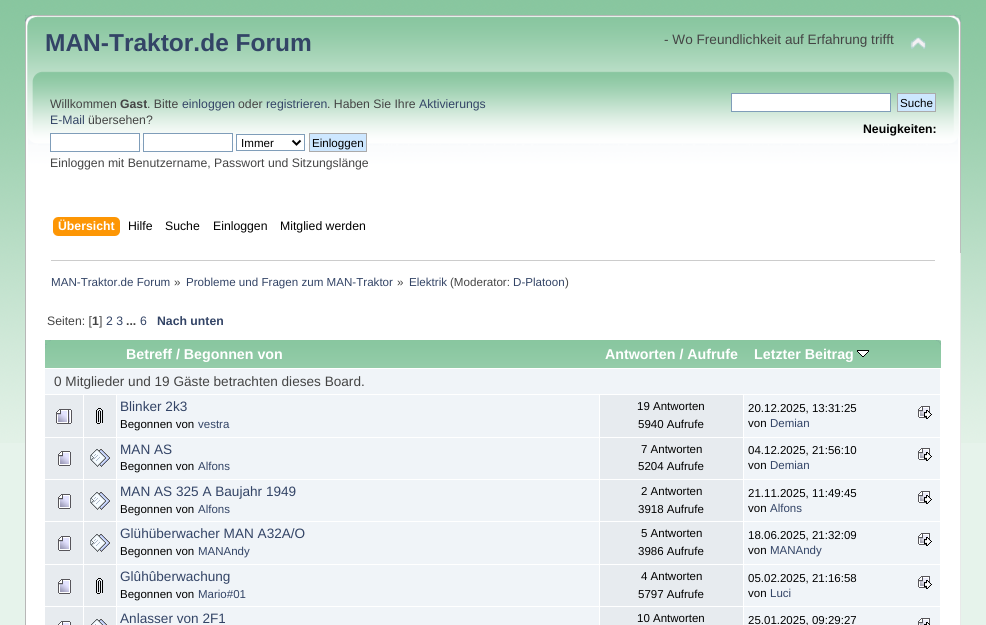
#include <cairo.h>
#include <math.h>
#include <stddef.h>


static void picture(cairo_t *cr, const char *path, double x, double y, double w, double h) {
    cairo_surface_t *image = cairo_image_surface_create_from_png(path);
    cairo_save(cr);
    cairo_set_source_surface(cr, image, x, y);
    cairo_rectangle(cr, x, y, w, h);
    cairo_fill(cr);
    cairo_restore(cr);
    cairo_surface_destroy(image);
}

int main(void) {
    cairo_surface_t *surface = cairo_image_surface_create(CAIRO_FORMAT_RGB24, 986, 625);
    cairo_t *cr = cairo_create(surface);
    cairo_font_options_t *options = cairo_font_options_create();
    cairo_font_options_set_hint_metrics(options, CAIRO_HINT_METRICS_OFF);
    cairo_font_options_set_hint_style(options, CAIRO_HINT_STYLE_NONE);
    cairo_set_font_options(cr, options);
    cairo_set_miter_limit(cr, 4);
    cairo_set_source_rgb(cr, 0.902, 0.953, 0.918);
    cairo_paint(cr);
    picture(cr, "img1.png", 0, 0, 986, 443);
    picture(cr, "img2.png", 25, 15, 920, 238);
    picture(cr, "img3.png", 945, 15, 16, 238);
    cairo_select_font_face(cr, "Liberation Sans", CAIRO_FONT_SLANT_NORMAL, CAIRO_FONT_WEIGHT_BOLD);
    cairo_set_font_size(cr, 24.5);
    cairo_set_source_rgb(cr, 0.2, 0.267, 0.4);
    cairo_move_to(cr, 45, 51);
    cairo_show_text(cr, "MAN-Traktor.de Forum");
    cairo_select_font_face(cr, "Liberation Sans", CAIRO_FONT_SLANT_NORMAL, CAIRO_FONT_WEIGHT_NORMAL);
    cairo_set_font_size(cr, 13.6);
    cairo_set_source_rgb(cr, 0.267, 0.267, 0.267);
    cairo_move_to(cr, 664, 44);
    cairo_show_text(cr, "- Wo Freundlichkeit auf Erfahrung trifft");
    picture(cr, "img4.png", 910, 37, 16, 12);
    cairo_set_font_size(cr, 12.25);
    cairo_move_to(cr, 50, 108);
    cairo_show_text(cr, "Willkommen");
    cairo_select_font_face(cr, "Liberation Sans", CAIRO_FONT_SLANT_NORMAL, CAIRO_FONT_WEIGHT_BOLD);
    cairo_move_to(cr, 120, 108);
    cairo_show_text(cr, "Gast");
    cairo_select_font_face(cr, "Liberation Sans", CAIRO_FONT_SLANT_NORMAL, CAIRO_FONT_WEIGHT_NORMAL);
    cairo_move_to(cr, 147, 108);
    cairo_show_text(cr, ". Bitte");
    cairo_set_source_rgb(cr, 0.2, 0.267, 0.4);
    cairo_move_to(cr, 182, 108);
    cairo_show_text(cr, "einloggen");
    cairo_set_source_rgb(cr, 0.267, 0.267, 0.267);
    cairo_move_to(cr, 238, 108);
    cairo_show_text(cr, "oder");
    cairo_set_source_rgb(cr, 0.2, 0.267, 0.4);
    cairo_move_to(cr, 266, 108);
    cairo_show_text(cr, "registrieren");
    cairo_set_source_rgb(cr, 0.267, 0.267, 0.267);
    cairo_move_to(cr, 327, 108);
    cairo_show_text(cr, ". Haben Sie Ihre");
    cairo_set_source_rgb(cr, 0.2, 0.267, 0.4);
    cairo_move_to(cr, 419, 108);
    cairo_show_text(cr, "Aktivierungs");
    cairo_move_to(cr, 50, 124);
    cairo_show_text(cr, "E-Mail");
    cairo_set_source_rgb(cr, 0.267, 0.267, 0.267);
    cairo_move_to(cr, 88, 124);
    cairo_show_text(cr, "übersehen?");
    cairo_set_source_rgb(cr, 1, 1, 1);
    cairo_rectangle(cr, 50.5, 133.5, 89, 18);
    cairo_fill_preserve(cr);
    cairo_set_source_rgb(cr, 0.498, 0.616, 0.725);
    cairo_set_line_width(cr, 1);
    cairo_stroke(cr);
    cairo_set_source_rgb(cr, 1, 1, 1);
    cairo_rectangle(cr, 143.5, 133.5, 89, 18);
    cairo_fill_preserve(cr);
    cairo_set_source_rgb(cr, 0.498, 0.616, 0.725);
    cairo_stroke(cr);
    cairo_set_source_rgb(cr, 1, 1, 1);
    cairo_rectangle(cr, 236.5, 134.5, 68, 16);
    cairo_fill_preserve(cr);
    cairo_set_source_rgb(cr, 0.498, 0.616, 0.725);
    cairo_stroke(cr);
    cairo_new_path(cr);
    cairo_move_to(cr, 292.5, 140.5);
    cairo_line_to(cr, 296.5, 144.5);
    cairo_line_to(cr, 300.5, 140.5);
    cairo_set_source_rgb(cr, 0, 0, 0);
    cairo_set_line_width(cr, 2);
    cairo_stroke(cr);
    cairo_set_font_size(cr, 11.6);
    cairo_move_to(cr, 241, 147);
    cairo_show_text(cr, "Immer");
    cairo_set_source_rgb(cr, 0.804, 0.906, 1);
    cairo_rectangle(cr, 309.5, 133.5, 57, 18);
    cairo_fill_preserve(cr);
    cairo_set_source_rgb(cr, 0.667, 0.667, 0.667);
    cairo_set_line_width(cr, 1);
    cairo_stroke(cr);
    cairo_set_source_rgb(cr, 0, 0, 0);
    cairo_move_to(cr, 312, 147);
    cairo_show_text(cr, "Einloggen");
    cairo_set_font_size(cr, 12.25);
    cairo_set_source_rgb(cr, 0.267, 0.267, 0.267);
    cairo_move_to(cr, 50, 167);
    cairo_show_text(cr, "Einloggen mit Benutzername, Passwort und Sitzungslänge");
    cairo_set_source_rgb(cr, 1, 1, 1);
    cairo_rectangle(cr, 731.5, 93.5, 159, 18);
    cairo_fill_preserve(cr);
    cairo_set_source_rgb(cr, 0.498, 0.616, 0.725);
    cairo_stroke(cr);
    cairo_set_source_rgb(cr, 0.804, 0.906, 1);
    cairo_rectangle(cr, 897.5, 93.5, 38, 18);
    cairo_fill_preserve(cr);
    cairo_set_source_rgb(cr, 0.667, 0.667, 0.667);
    cairo_stroke(cr);
    cairo_set_font_size(cr, 11.6);
    cairo_set_source_rgb(cr, 0, 0, 0);
    cairo_move_to(cr, 900, 107);
    cairo_show_text(cr, "Suche");
    cairo_select_font_face(cr, "Liberation Sans", CAIRO_FONT_SLANT_NORMAL, CAIRO_FONT_WEIGHT_BOLD);
    cairo_set_font_size(cr, 12.25);
    cairo_move_to(cr, 863, 133);
    cairo_show_text(cr, "Neuigkeiten:");
    picture(cr, "img5.png", 58, 217, 62, 19);
    picture(cr, "img6.png", 53, 217, 5, 19);
    cairo_set_source_rgb(cr, 1, 1, 1);
    cairo_move_to(cr, 58, 230);
    cairo_show_text(cr, "Übersicht");
    cairo_select_font_face(cr, "Liberation Sans", CAIRO_FONT_SLANT_NORMAL, CAIRO_FONT_WEIGHT_NORMAL);
    cairo_set_source_rgb(cr, 0, 0, 0);
    cairo_move_to(cr, 128, 230);
    cairo_show_text(cr, "Hilfe");
    cairo_move_to(cr, 165, 230);
    cairo_show_text(cr, "Suche");
    cairo_move_to(cr, 213, 230);
    cairo_show_text(cr, "Einloggen");
    cairo_move_to(cr, 280, 230);
    cairo_show_text(cr, "Mitglied werden");
    cairo_set_source_rgb(cr, 1, 1, 1);
    cairo_rectangle(cr, 26, 253, 934, 372);
    cairo_fill(cr);
    cairo_set_source_rgb(cr, 0.718, 0.718, 0.718);
    cairo_rectangle(cr, 25, 253, 1, 372);
    cairo_fill(cr);
    cairo_set_source_rgb(cr, 0.914, 0.914, 0.914);
    cairo_rectangle(cr, 960, 253, 1, 372);
    cairo_fill(cr);
    cairo_set_source_rgb(cr, 0.8, 0.8, 0.8);
    cairo_rectangle(cr, 51, 260, 884, 1);
    cairo_fill(cr);
    cairo_set_font_size(cr, 11.6);
    cairo_set_source_rgb(cr, 0.2, 0.267, 0.4);
    cairo_move_to(cr, 51, 286);
    cairo_show_text(cr, "MAN-Traktor.de Forum");
    cairo_set_source_rgb(cr, 0.267, 0.267, 0.267);
    cairo_move_to(cr, 174, 286);
    cairo_show_text(cr, "»");
    cairo_set_source_rgb(cr, 0.2, 0.267, 0.4);
    cairo_move_to(cr, 186, 286);
    cairo_show_text(cr, "Probleme und Fragen zum MAN-Traktor");
    cairo_set_source_rgb(cr, 0.267, 0.267, 0.267);
    cairo_move_to(cr, 397, 286);
    cairo_show_text(cr, "»");
    cairo_set_source_rgb(cr, 0.2, 0.267, 0.4);
    cairo_move_to(cr, 409, 286);
    cairo_show_text(cr, "Elektrik");
    cairo_set_source_rgb(cr, 0.267, 0.267, 0.267);
    cairo_move_to(cr, 450, 286);
    cairo_show_text(cr, "(Moderator:");
    cairo_set_source_rgb(cr, 0.2, 0.267, 0.4);
    cairo_move_to(cr, 513, 286);
    cairo_show_text(cr, "D-Platoon");
    cairo_set_source_rgb(cr, 0.267, 0.267, 0.267);
    cairo_move_to(cr, 565, 286);
    cairo_show_text(cr, ")");
    cairo_set_font_size(cr, 12.25);
    cairo_move_to(cr, 47, 325);
    cairo_show_text(cr, "Seiten: [");
    cairo_select_font_face(cr, "Liberation Sans", CAIRO_FONT_SLANT_NORMAL, CAIRO_FONT_WEIGHT_BOLD);
    cairo_move_to(cr, 92, 325);
    cairo_show_text(cr, "1");
    cairo_select_font_face(cr, "Liberation Sans", CAIRO_FONT_SLANT_NORMAL, CAIRO_FONT_WEIGHT_NORMAL);
    cairo_move_to(cr, 99, 325);
    cairo_show_text(cr, "]");
    cairo_set_source_rgb(cr, 0.2, 0.267, 0.4);
    cairo_move_to(cr, 106, 325);
    cairo_show_text(cr, "2 3");
    cairo_select_font_face(cr, "Liberation Sans", CAIRO_FONT_SLANT_NORMAL, CAIRO_FONT_WEIGHT_BOLD);
    cairo_set_source_rgb(cr, 0.267, 0.267, 0.267);
    cairo_move_to(cr, 126, 325);
    cairo_show_text(cr, "...");
    cairo_select_font_face(cr, "Liberation Sans", CAIRO_FONT_SLANT_NORMAL, CAIRO_FONT_WEIGHT_NORMAL);
    cairo_set_source_rgb(cr, 0.2, 0.267, 0.4);
    cairo_move_to(cr, 140, 325);
    cairo_show_text(cr, "6");
    cairo_select_font_face(cr, "Liberation Sans", CAIRO_FONT_SLANT_NORMAL, CAIRO_FONT_WEIGHT_BOLD);
    cairo_move_to(cr, 157, 325);
    cairo_show_text(cr, "Nach unten");
    picture(cr, "img7.png", 45, 340, 71, 28);
    picture(cr, "img8.png", 116, 340, 483, 28);
    cairo_set_font_size(cr, 14.25);
    cairo_set_source_rgb(cr, 1, 1, 1);
    cairo_move_to(cr, 126, 359);
    cairo_show_text(cr, "Betreff / Begonnen von");
    picture(cr, "img9.png", 599, 340, 145, 28);
    cairo_move_to(cr, 605, 359);
    cairo_show_text(cr, "Antworten / Aufrufe");
    picture(cr, "img10.png", 744, 340, 197, 28);
    cairo_move_to(cr, 754, 359);
    cairo_show_text(cr, "Letzter Beitrag");
    picture(cr, "img11.png", 857, 350, 12, 7);
    cairo_set_source_rgb(cr, 0.941, 0.957, 0.969);
    cairo_rectangle(cr, 45, 369, 895, 25);
    cairo_fill(cr);
    cairo_select_font_face(cr, "Liberation Sans", CAIRO_FONT_SLANT_NORMAL, CAIRO_FONT_WEIGHT_NORMAL);
    cairo_set_font_size(cr, 13.6);
    cairo_set_source_rgb(cr, 0.267, 0.267, 0.267);
    cairo_move_to(cr, 54, 386);
    cairo_show_text(cr, "0 Mitglieder und 19 Gäste betrachten dieses Board.");
    cairo_set_source_rgb(cr, 0.906, 0.918, 0.937);
    cairo_rectangle(cr, 45, 395, 38, 42);
    cairo_fill(cr);
    picture(cr, "img12.png", 56, 409, 16, 15);
    cairo_rectangle(cr, 84, 395, 32, 42);
    cairo_fill(cr);
    picture(cr, "img13.png", 96, 408, 7, 16);
    cairo_set_source_rgb(cr, 0.941, 0.957, 0.969);
    cairo_rectangle(cr, 117, 395, 482, 42);
    cairo_fill(cr);
    cairo_set_source_rgb(cr, 0.2, 0.267, 0.4);
    cairo_move_to(cr, 120, 411);
    cairo_show_text(cr, "Blinker 2k3");
    cairo_set_font_size(cr, 11.5);
    cairo_set_source_rgb(cr, 0, 0, 0);
    cairo_move_to(cr, 120, 428);
    cairo_show_text(cr, "Begonnen von");
    cairo_set_source_rgb(cr, 0.2, 0.267, 0.4);
    cairo_move_to(cr, 198, 428);
    cairo_show_text(cr, "vestra");
    cairo_set_source_rgb(cr, 0.906, 0.918, 0.937);
    cairo_rectangle(cr, 600, 395, 143, 42);
    cairo_fill(cr);
    cairo_set_source_rgb(cr, 0, 0, 0);
    cairo_move_to(cr, 637, 410);
    cairo_show_text(cr, "19 Antworten");
    cairo_move_to(cr, 638, 428);
    cairo_show_text(cr, "5940 Aufrufe");
    cairo_set_source_rgb(cr, 0.941, 0.957, 0.969);
    cairo_rectangle(cr, 744, 395, 196, 42);
    cairo_fill(cr);
    cairo_set_source_rgb(cr, 0, 0, 0);
    cairo_move_to(cr, 748, 412);
    cairo_show_text(cr, "20.12.2025, 13:31:25");
    picture(cr, "img14.png", 918, 406, 14, 13);
    cairo_move_to(cr, 748, 427);
    cairo_show_text(cr, "von");
    cairo_set_source_rgb(cr, 0.2, 0.267, 0.4);
    cairo_move_to(cr, 770, 427);
    cairo_show_text(cr, "Demian");
    cairo_set_source_rgb(cr, 0.906, 0.918, 0.937);
    cairo_rectangle(cr, 45, 438, 38, 41);
    cairo_fill(cr);
    picture(cr, "img15.png", 58, 451, 13, 15);
    cairo_rectangle(cr, 84, 438, 32, 41);
    cairo_fill(cr);
    picture(cr, "img16.png", 90, 449, 20, 18);
    cairo_set_source_rgb(cr, 0.941, 0.957, 0.969);
    cairo_rectangle(cr, 117, 438, 482, 41);
    cairo_fill(cr);
    cairo_set_font_size(cr, 13.6);
    cairo_set_source_rgb(cr, 0.2, 0.267, 0.4);
    cairo_move_to(cr, 120, 454);
    cairo_show_text(cr, "MAN AS");
    cairo_set_font_size(cr, 11.5);
    cairo_set_source_rgb(cr, 0, 0, 0);
    cairo_move_to(cr, 120, 470);
    cairo_show_text(cr, "Begonnen von");
    cairo_set_source_rgb(cr, 0.2, 0.267, 0.4);
    cairo_move_to(cr, 198, 470);
    cairo_show_text(cr, "Alfons");
    cairo_set_source_rgb(cr, 0.906, 0.918, 0.937);
    cairo_rectangle(cr, 600, 438, 143, 41);
    cairo_fill(cr);
    cairo_set_source_rgb(cr, 0, 0, 0);
    cairo_move_to(cr, 641, 453);
    cairo_show_text(cr, "7 Antworten");
    cairo_move_to(cr, 638, 470);
    cairo_show_text(cr, "5204 Aufrufe");
    cairo_set_source_rgb(cr, 0.941, 0.957, 0.969);
    cairo_rectangle(cr, 744, 438, 196, 41);
    cairo_fill(cr);
    cairo_set_source_rgb(cr, 0, 0, 0);
    cairo_move_to(cr, 748, 454);
    cairo_show_text(cr, "04.12.2025, 21:56:10");
    picture(cr, "img14.png", 918, 448, 14, 13);
    cairo_move_to(cr, 748, 469);
    cairo_show_text(cr, "von");
    cairo_set_source_rgb(cr, 0.2, 0.267, 0.4);
    cairo_move_to(cr, 770, 469);
    cairo_show_text(cr, "Demian");
    cairo_set_source_rgb(cr, 0.906, 0.918, 0.937);
    cairo_rectangle(cr, 45, 480, 38, 41);
    cairo_fill(cr);
    picture(cr, "img15.png", 58, 494, 13, 15);
    cairo_rectangle(cr, 84, 480, 32, 41);
    cairo_fill(cr);
    picture(cr, "img16.png", 90, 492, 20, 18);
    cairo_set_source_rgb(cr, 0.941, 0.957, 0.969);
    cairo_rectangle(cr, 117, 480, 482, 41);
    cairo_fill(cr);
    cairo_set_font_size(cr, 13.6);
    cairo_set_source_rgb(cr, 0.2, 0.267, 0.4);
    cairo_move_to(cr, 120, 496);
    cairo_show_text(cr, "MAN AS 325 A Baujahr 1949");
    cairo_set_font_size(cr, 11.5);
    cairo_set_source_rgb(cr, 0, 0, 0);
    cairo_move_to(cr, 120, 513);
    cairo_show_text(cr, "Begonnen von");
    cairo_set_source_rgb(cr, 0.2, 0.267, 0.4);
    cairo_move_to(cr, 198, 513);
    cairo_show_text(cr, "Alfons");
    cairo_set_source_rgb(cr, 0.906, 0.918, 0.937);
    cairo_rectangle(cr, 600, 480, 143, 41);
    cairo_fill(cr);
    cairo_set_source_rgb(cr, 0, 0, 0);
    cairo_move_to(cr, 641, 495);
    cairo_show_text(cr, "2 Antworten");
    cairo_move_to(cr, 638, 513);
    cairo_show_text(cr, "3918 Aufrufe");
    cairo_set_source_rgb(cr, 0.941, 0.957, 0.969);
    cairo_rectangle(cr, 744, 480, 196, 41);
    cairo_fill(cr);
    cairo_set_source_rgb(cr, 0, 0, 0);
    cairo_move_to(cr, 748, 497);
    cairo_show_text(cr, "21.11.2025, 11:49:45");
    picture(cr, "img14.png", 918, 491, 14, 13);
    cairo_move_to(cr, 748, 512);
    cairo_show_text(cr, "von");
    cairo_set_source_rgb(cr, 0.2, 0.267, 0.4);
    cairo_move_to(cr, 770, 512);
    cairo_show_text(cr, "Alfons");
    cairo_set_source_rgb(cr, 0.906, 0.918, 0.937);
    cairo_rectangle(cr, 45, 522, 38, 42);
    cairo_fill(cr);
    picture(cr, "img15.png", 58, 536, 13, 15);
    cairo_rectangle(cr, 84, 522, 32, 42);
    cairo_fill(cr);
    picture(cr, "img16.png", 90, 534, 20, 18);
    cairo_set_source_rgb(cr, 0.941, 0.957, 0.969);
    cairo_rectangle(cr, 117, 522, 482, 42);
    cairo_fill(cr);
    cairo_set_font_size(cr, 13.6);
    cairo_set_source_rgb(cr, 0.2, 0.267, 0.4);
    cairo_move_to(cr, 120, 538);
    cairo_show_text(cr, "Glühüberwacher MAN A32A/O");
    cairo_set_font_size(cr, 11.5);
    cairo_set_source_rgb(cr, 0, 0, 0);
    cairo_move_to(cr, 120, 555);
    cairo_show_text(cr, "Begonnen von");
    cairo_set_source_rgb(cr, 0.2, 0.267, 0.4);
    cairo_move_to(cr, 198, 555);
    cairo_show_text(cr, "MANAndy");
    cairo_set_source_rgb(cr, 0.906, 0.918, 0.937);
    cairo_rectangle(cr, 600, 522, 143, 42);
    cairo_fill(cr);
    cairo_set_source_rgb(cr, 0, 0, 0);
    cairo_move_to(cr, 641, 537);
    cairo_show_text(cr, "5 Antworten");
    cairo_move_to(cr, 638, 555);
    cairo_show_text(cr, "3986 Aufrufe");
    cairo_set_source_rgb(cr, 0.941, 0.957, 0.969);
    cairo_rectangle(cr, 744, 522, 196, 42);
    cairo_fill(cr);
    cairo_set_source_rgb(cr, 0, 0, 0);
    cairo_move_to(cr, 748, 539);
    cairo_show_text(cr, "18.06.2025, 21:32:09");
    picture(cr, "img14.png", 918, 533, 14, 13);
    cairo_move_to(cr, 748, 554);
    cairo_show_text(cr, "von");
    cairo_set_source_rgb(cr, 0.2, 0.267, 0.4);
    cairo_move_to(cr, 770, 554);
    cairo_show_text(cr, "MANAndy");
    cairo_set_source_rgb(cr, 0.906, 0.918, 0.937);
    cairo_rectangle(cr, 45, 565, 38, 41);
    cairo_fill(cr);
    picture(cr, "img15.png", 58, 579, 13, 15);
    cairo_rectangle(cr, 84, 565, 32, 41);
    cairo_fill(cr);
    picture(cr, "img13.png", 96, 578, 7, 16);
    cairo_set_source_rgb(cr, 0.941, 0.957, 0.969);
    cairo_rectangle(cr, 117, 565, 482, 41);
    cairo_fill(cr);
    cairo_set_font_size(cr, 13.6);
    cairo_set_source_rgb(cr, 0.2, 0.267, 0.4);
    cairo_move_to(cr, 120, 581);
    cairo_show_text(cr, "Glûhûberwachung");
    cairo_set_font_size(cr, 11.5);
    cairo_set_source_rgb(cr, 0, 0, 0);
    cairo_move_to(cr, 120, 598);
    cairo_show_text(cr, "Begonnen von");
    cairo_set_source_rgb(cr, 0.2, 0.267, 0.4);
    cairo_move_to(cr, 198, 598);
    cairo_show_text(cr, "Mario#01");
    cairo_set_source_rgb(cr, 0.906, 0.918, 0.937);
    cairo_rectangle(cr, 600, 565, 143, 41);
    cairo_fill(cr);
    cairo_set_source_rgb(cr, 0, 0, 0);
    cairo_move_to(cr, 641, 580);
    cairo_show_text(cr, "4 Antworten");
    cairo_move_to(cr, 638, 598);
    cairo_show_text(cr, "5797 Aufrufe");
    cairo_set_source_rgb(cr, 0.941, 0.957, 0.969);
    cairo_rectangle(cr, 744, 565, 196, 41);
    cairo_fill(cr);
    cairo_set_source_rgb(cr, 0, 0, 0);
    cairo_move_to(cr, 748, 582);
    cairo_show_text(cr, "05.02.2025, 21:16:58");
    picture(cr, "img14.png", 918, 576, 14, 13);
    cairo_move_to(cr, 748, 597);
    cairo_show_text(cr, "von");
    cairo_set_source_rgb(cr, 0.2, 0.267, 0.4);
    cairo_move_to(cr, 770, 597);
    cairo_show_text(cr, "Luci");
    cairo_set_source_rgb(cr, 0.906, 0.918, 0.937);
    cairo_rectangle(cr, 45, 607, 38, 18);
    cairo_fill(cr);
    picture(cr, "img17.png", 58, 621, 13, 4);
    cairo_rectangle(cr, 84, 607, 32, 18);
    cairo_fill(cr);
    picture(cr, "img18.png", 91, 619, 16, 6);
    cairo_set_source_rgb(cr, 0.941, 0.957, 0.969);
    cairo_rectangle(cr, 117, 607, 482, 18);
    cairo_fill(cr);
    cairo_set_font_size(cr, 13.6);
    cairo_set_source_rgb(cr, 0.2, 0.267, 0.4);
    cairo_move_to(cr, 120, 623);
    cairo_show_text(cr, "Anlasser von 2F1");
    cairo_set_source_rgb(cr, 0.906, 0.918, 0.937);
    cairo_rectangle(cr, 600, 607, 143, 18);
    cairo_fill(cr);
    cairo_set_font_size(cr, 11.5);
    cairo_set_source_rgb(cr, 0, 0, 0);
    cairo_move_to(cr, 637, 622);
    cairo_show_text(cr, "10 Antworten");
    cairo_set_source_rgb(cr, 0.941, 0.957, 0.969);
    cairo_rectangle(cr, 744, 607, 196, 18);
    cairo_fill(cr);
    cairo_set_source_rgb(cr, 0, 0, 0);
    cairo_move_to(cr, 748, 624);
    cairo_show_text(cr, "25.01.2025, 09:29:27");
    picture(cr, "img19.png", 918, 618, 12, 7);
    cairo_surface_write_to_png(surface, "page.png");
    cairo_font_options_destroy(options);
    cairo_destroy(cr);
    cairo_surface_destroy(surface);
    return 0;
}
